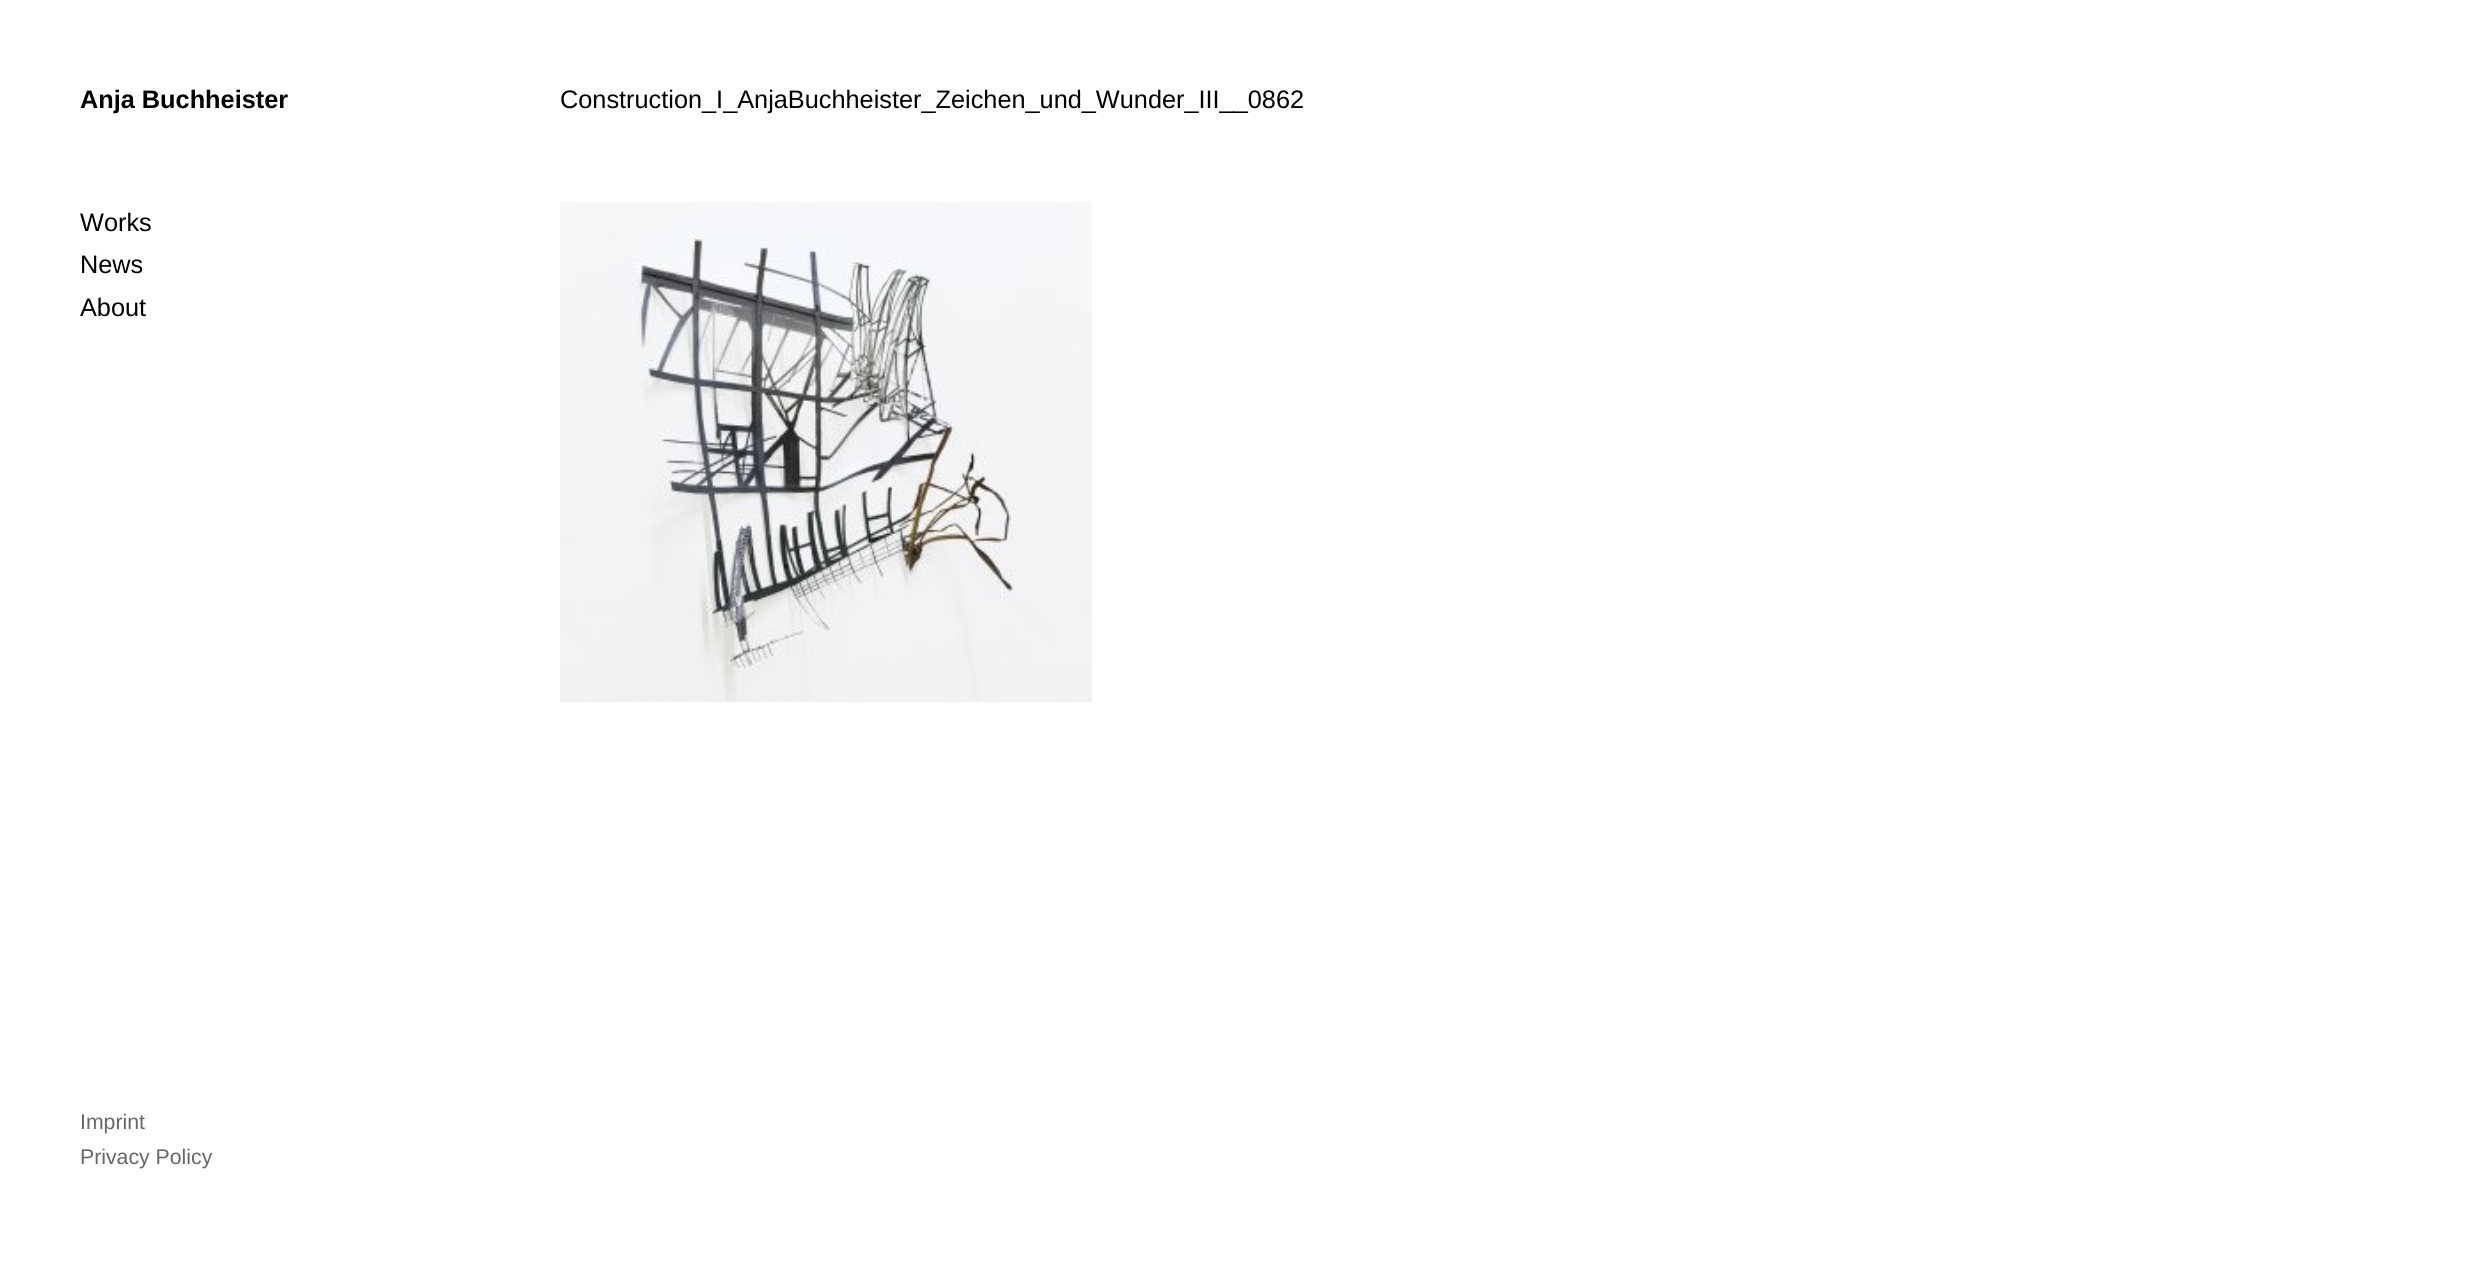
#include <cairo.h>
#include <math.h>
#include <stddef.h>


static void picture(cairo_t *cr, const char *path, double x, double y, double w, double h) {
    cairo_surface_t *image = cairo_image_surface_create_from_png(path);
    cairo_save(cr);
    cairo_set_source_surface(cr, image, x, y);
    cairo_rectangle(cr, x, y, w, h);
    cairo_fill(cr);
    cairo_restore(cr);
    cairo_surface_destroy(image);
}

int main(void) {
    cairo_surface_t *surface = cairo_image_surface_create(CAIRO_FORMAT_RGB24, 2472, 1263);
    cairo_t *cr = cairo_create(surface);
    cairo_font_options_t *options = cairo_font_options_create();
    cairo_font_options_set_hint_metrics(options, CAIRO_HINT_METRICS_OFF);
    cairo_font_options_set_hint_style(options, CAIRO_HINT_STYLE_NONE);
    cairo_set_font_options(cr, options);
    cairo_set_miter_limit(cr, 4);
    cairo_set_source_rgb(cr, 1, 1, 1);
    cairo_paint(cr);
    cairo_select_font_face(cr, "Liberation Sans", CAIRO_FONT_SLANT_NORMAL, CAIRO_FONT_WEIGHT_BOLD);
    cairo_set_font_size(cr, 25.3);
    cairo_set_source_rgb(cr, 0, 0, 0);
    cairo_move_to(cr, 80, 108);
    cairo_show_text(cr, "Anja Buchheister");
    cairo_select_font_face(cr, "Liberation Sans", CAIRO_FONT_SLANT_NORMAL, CAIRO_FONT_WEIGHT_NORMAL);
    cairo_move_to(cr, 80, 231);
    cairo_show_text(cr, "Works");
    cairo_move_to(cr, 80, 273);
    cairo_show_text(cr, "News");
    cairo_move_to(cr, 80, 316);
    cairo_show_text(cr, "About");
    cairo_set_font_size(cr, 21.25);
    cairo_set_source_rgb(cr, 0.4, 0.4, 0.4);
    cairo_move_to(cr, 80, 1129);
    cairo_show_text(cr, "Imprint");
    cairo_move_to(cr, 80, 1164);
    cairo_show_text(cr, "Privacy Policy");
    cairo_set_font_size(cr, 25.3);
    cairo_set_source_rgb(cr, 0, 0, 0);
    cairo_move_to(cr, 560, 108);
    cairo_show_text(cr, "Construction_I_AnjaBuchheister_Zeichen_und_Wunder_III__0862");
    picture(cr, "img1.png", 560, 202, 532, 500);
    cairo_surface_write_to_png(surface, "page.png");
    cairo_font_options_destroy(options);
    cairo_destroy(cr);
    cairo_surface_destroy(surface);
    return 0;
}
